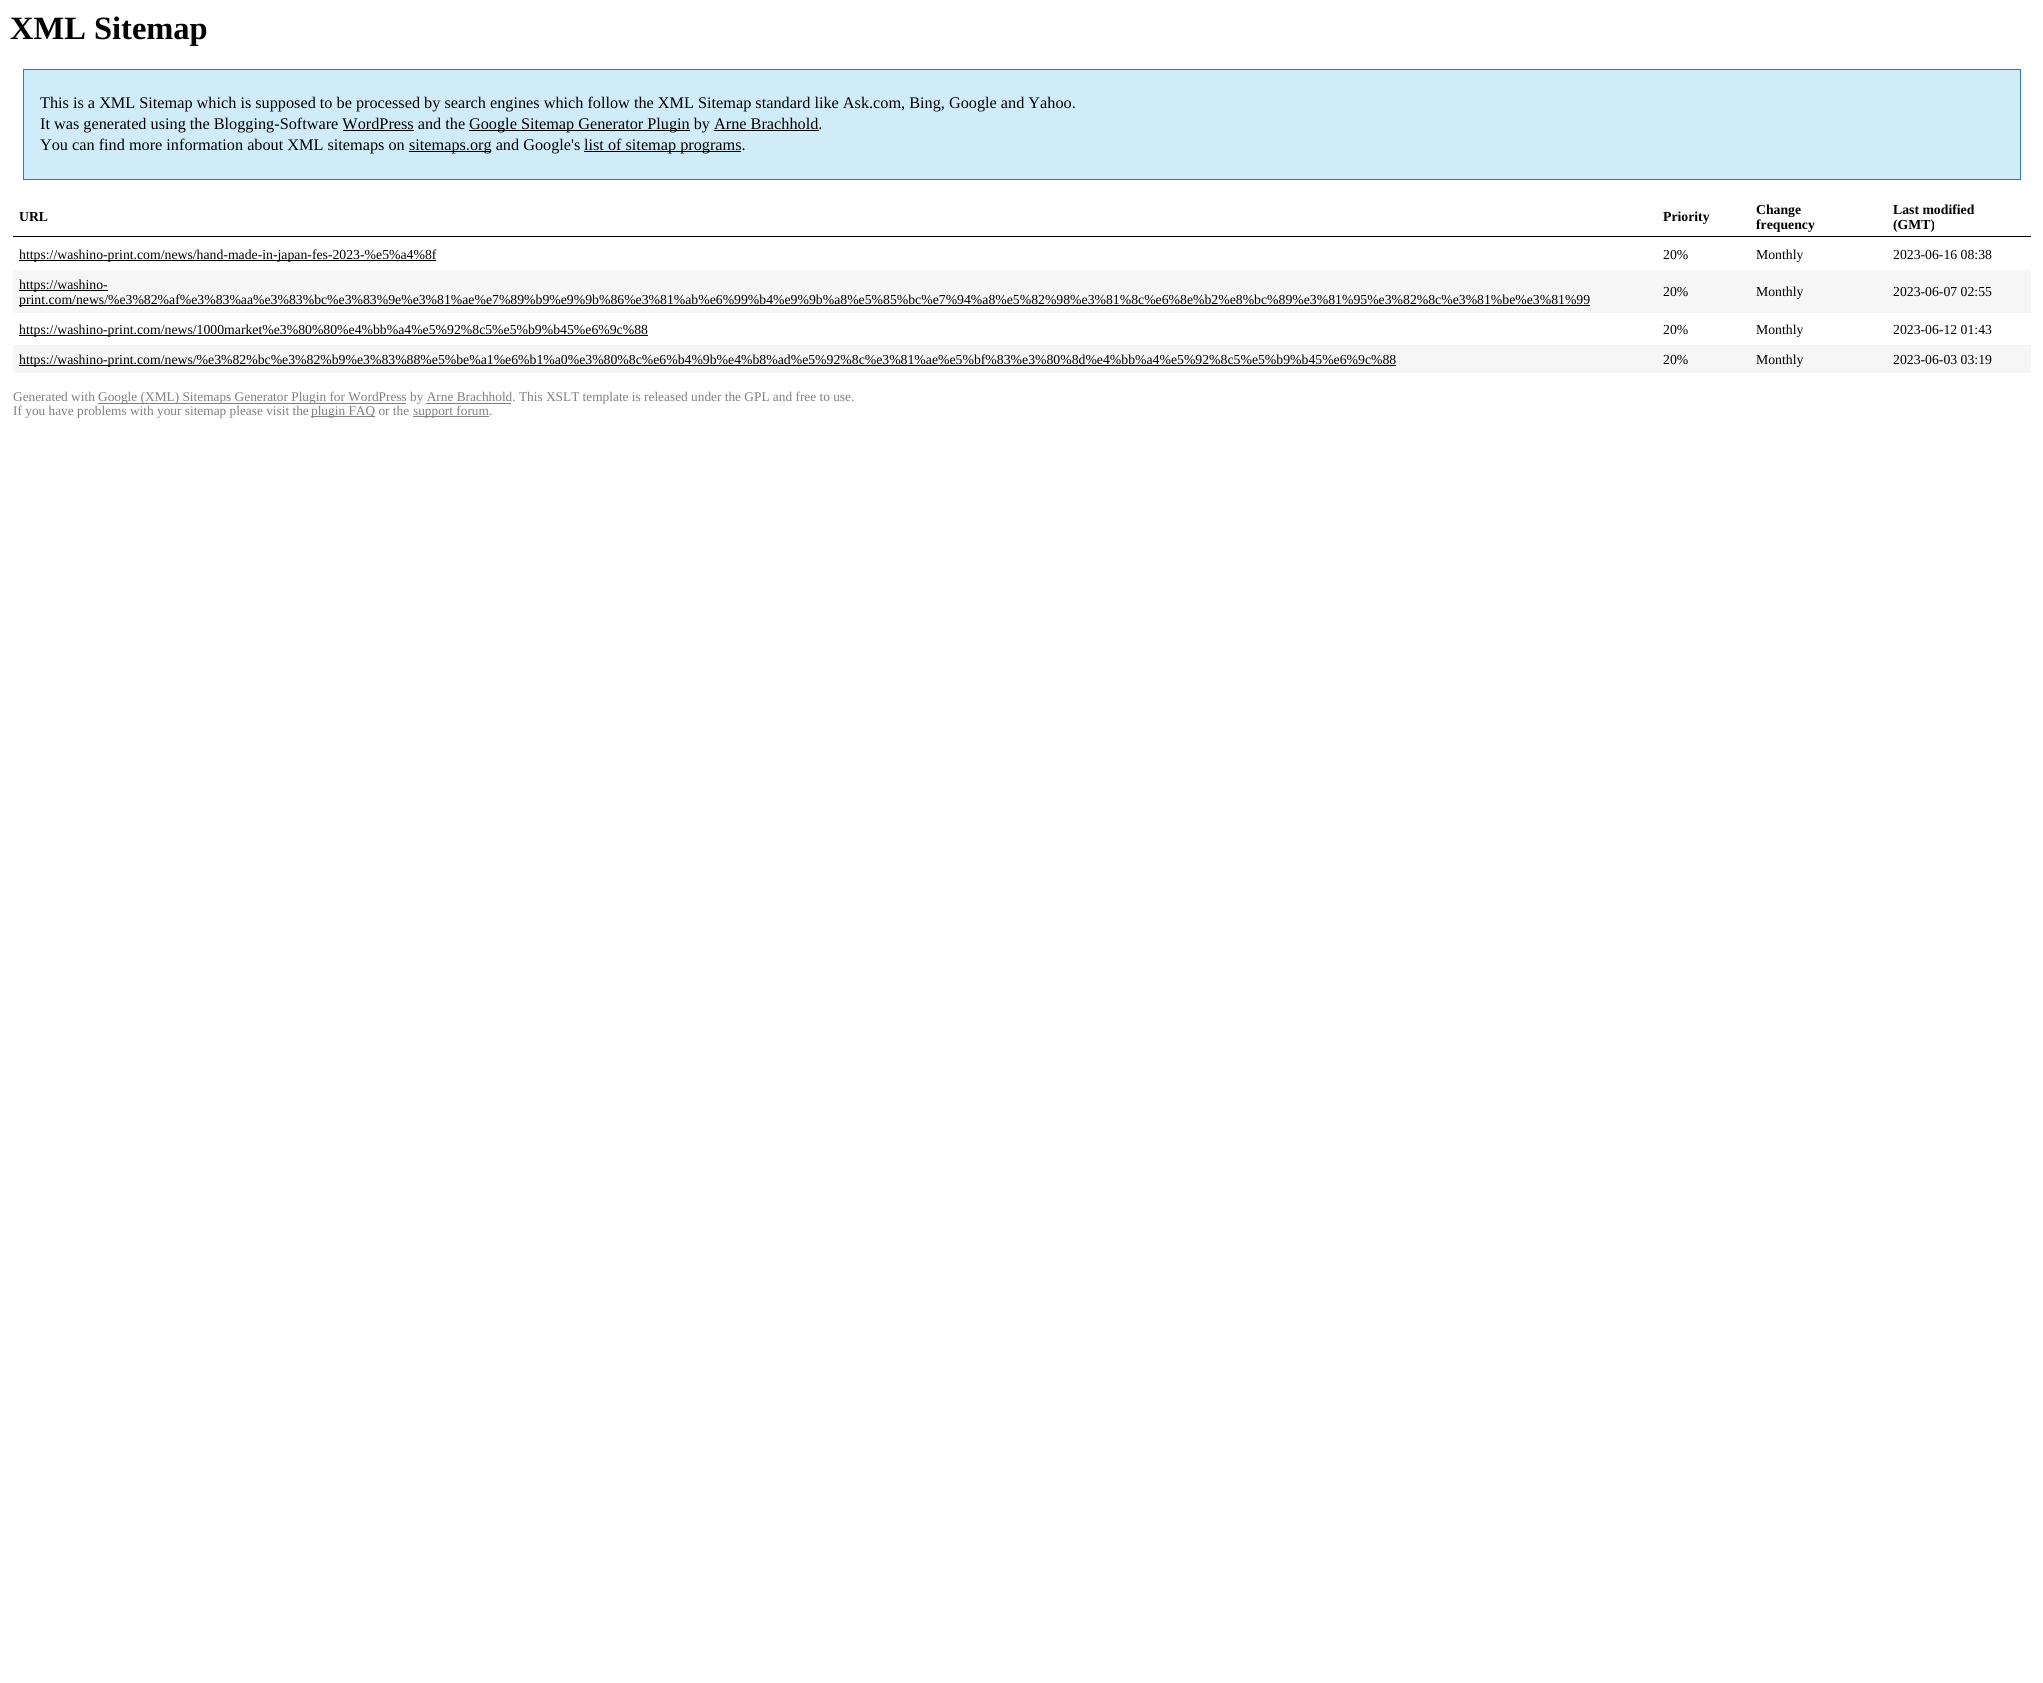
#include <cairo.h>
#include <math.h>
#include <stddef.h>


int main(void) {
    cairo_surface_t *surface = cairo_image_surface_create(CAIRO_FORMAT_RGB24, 2043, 1683);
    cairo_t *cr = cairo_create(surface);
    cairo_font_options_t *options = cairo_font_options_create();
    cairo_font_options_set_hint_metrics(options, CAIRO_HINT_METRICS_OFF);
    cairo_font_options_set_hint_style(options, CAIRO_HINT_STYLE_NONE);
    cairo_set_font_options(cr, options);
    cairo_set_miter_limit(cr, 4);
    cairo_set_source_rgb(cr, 1, 1, 1);
    cairo_paint(cr);
    cairo_select_font_face(cr, "Liberation Serif", CAIRO_FONT_SLANT_NORMAL, CAIRO_FONT_WEIGHT_BOLD);
    cairo_set_font_size(cr, 32.5);
    cairo_set_source_rgb(cr, 0, 0, 0);
    cairo_move_to(cr, 10, 39);
    cairo_show_text(cr, "XML Sitemap");
    cairo_set_source_rgb(cr, 0.812, 0.922, 0.969);
    cairo_rectangle(cr, 23.5, 69.5, 1997, 110);
    cairo_fill_preserve(cr);
    cairo_set_source_rgb(cr, 0.145, 0.502, 0.698);
    cairo_set_line_width(cr, 1);
    cairo_stroke(cr);
    cairo_select_font_face(cr, "Liberation Serif", CAIRO_FONT_SLANT_NORMAL, CAIRO_FONT_WEIGHT_NORMAL);
    cairo_set_font_size(cr, 16.25);
    cairo_set_source_rgb(cr, 0, 0, 0);
    cairo_move_to(cr, 40, 108);
    cairo_show_text(cr, "This is a XML Sitemap which is supposed to be processed by search engines which follow the XML Sitemap standard like Ask.com, Bing, Google and Yahoo.");
    cairo_move_to(cr, 40, 129);
    cairo_show_text(cr, "It was generated using the Blogging-Software WordPress and the");
    cairo_rectangle(cr, 469, 130, 221, 1);
    cairo_fill(cr);
    cairo_move_to(cr, 469, 129);
    cairo_show_text(cr, "Google Sitemap Generator Plugin by Arne Brachhold.");
    cairo_rectangle(cr, 343, 130, 71, 1);
    cairo_fill(cr);
    cairo_rectangle(cr, 714, 130, 105, 1);
    cairo_fill(cr);
    cairo_move_to(cr, 40, 150);
    cairo_show_text(cr, "You can find more information about XML sitemaps on");
    cairo_rectangle(cr, 409, 151, 82, 1);
    cairo_fill(cr);
    cairo_move_to(cr, 409, 150);
    cairo_show_text(cr, "sitemaps.org and Google's");
    cairo_rectangle(cr, 584, 151, 157, 1);
    cairo_fill(cr);
    cairo_move_to(cr, 584, 150);
    cairo_show_text(cr, "list of sitemap programs.");
    cairo_rectangle(cr, 13, 236, 2018, 1);
    cairo_fill(cr);
    cairo_select_font_face(cr, "Liberation Serif", CAIRO_FONT_SLANT_NORMAL, CAIRO_FONT_WEIGHT_BOLD);
    cairo_set_font_size(cr, 13.75);
    cairo_move_to(cr, 19, 221);
    cairo_show_text(cr, "URL");
    cairo_move_to(cr, 1663, 221);
    cairo_show_text(cr, "Priority");
    cairo_move_to(cr, 1756, 214);
    cairo_show_text(cr, "Change");
    cairo_move_to(cr, 1756, 229);
    cairo_show_text(cr, "frequency");
    cairo_move_to(cr, 1893, 214);
    cairo_show_text(cr, "Last modified");
    cairo_move_to(cr, 1893, 229);
    cairo_show_text(cr, "(GMT)");
    cairo_rectangle(cr, 19, 260, 417, 1);
    cairo_fill(cr);
    cairo_select_font_face(cr, "Liberation Serif", CAIRO_FONT_SLANT_NORMAL, CAIRO_FONT_WEIGHT_NORMAL);
    cairo_move_to(cr, 19, 259);
    cairo_show_text(cr, "https://washino-print.com/news/hand-made-in-japan-fes-2023-%e5%a4%8f");
    cairo_move_to(cr, 1663, 259);
    cairo_show_text(cr, "20%");
    cairo_move_to(cr, 1756, 259);
    cairo_show_text(cr, "Monthly");
    cairo_move_to(cr, 1893, 259);
    cairo_show_text(cr, "2023-06-16 08:38");
    cairo_set_source_rgb(cr, 0.961, 0.961, 0.961);
    cairo_rectangle(cr, 13, 270, 2018, 43);
    cairo_fill(cr);
    cairo_set_source_rgb(cr, 0, 0, 0);
    cairo_rectangle(cr, 19, 290, 89, 1);
    cairo_fill(cr);
    cairo_move_to(cr, 19, 289);
    cairo_show_text(cr, "https://washino-");
    cairo_rectangle(cr, 19, 305, 1571, 1);
    cairo_fill(cr);
    cairo_move_to(cr, 19, 304);
    cairo_show_text(cr, "print.com/news/%e3%82%af%e3%83%aa%e3%83%bc%e3%83%9e%e3%81%ae%e7%89%b9%e9%9b%86%e3%81%ab%e6%99%b4%e9%9b%a8%e5%85%bc%e7%94%a8%e5%82%98%e3%81%8c%e6%8e%b2%e8%bc%89%e3%81%95%e3%82%8c%e3%81%be%e3%81%99");
    cairo_move_to(cr, 1663, 296);
    cairo_show_text(cr, "20%");
    cairo_move_to(cr, 1756, 296);
    cairo_show_text(cr, "Monthly");
    cairo_move_to(cr, 1893, 296);
    cairo_show_text(cr, "2023-06-07 02:55");
    cairo_rectangle(cr, 19, 335, 629, 1);
    cairo_fill(cr);
    cairo_move_to(cr, 19, 334);
    cairo_show_text(cr, "https://washino-print.com/news/1000market%e3%80%80%e4%bb%a4%e5%92%8c5%e5%b9%b45%e6%9c%88");
    cairo_move_to(cr, 1663, 334);
    cairo_show_text(cr, "20%");
    cairo_move_to(cr, 1756, 334);
    cairo_show_text(cr, "Monthly");
    cairo_move_to(cr, 1893, 334);
    cairo_show_text(cr, "2023-06-12 01:43");
    cairo_set_source_rgb(cr, 0.961, 0.961, 0.961);
    cairo_rectangle(cr, 13, 345, 2018, 28);
    cairo_fill(cr);
    cairo_set_source_rgb(cr, 0, 0, 0);
    cairo_rectangle(cr, 19, 365, 1377, 1);
    cairo_fill(cr);
    cairo_move_to(cr, 19, 364);
    cairo_show_text(cr, "https://washino-print.com/news/%e3%82%bc%e3%82%b9%e3%83%88%e5%be%a1%e6%b1%a0%e3%80%8c%e6%b4%9b%e4%b8%ad%e5%92%8c%e3%81%ae%e5%bf%83%e3%80%8d%e4%bb%a4%e5%92%8c5%e5%b9%b45%e6%9c%88");
    cairo_move_to(cr, 1663, 364);
    cairo_show_text(cr, "20%");
    cairo_move_to(cr, 1756, 364);
    cairo_show_text(cr, "Monthly");
    cairo_move_to(cr, 1893, 364);
    cairo_show_text(cr, "2023-06-03 03:19");
    cairo_set_font_size(cr, 13.33);
    cairo_set_source_rgb(cr, 0.502, 0.502, 0.502);
    cairo_move_to(cr, 13, 401);
    cairo_show_text(cr, "Generated with");
    cairo_rectangle(cr, 98, 403, 308, 1);
    cairo_fill(cr);
    cairo_move_to(cr, 98, 401);
    cairo_show_text(cr, "Google (XML) Sitemaps Generator Plugin for WordPress by Arne Brachhold. This XSLT template is released under the GPL and free to use.");
    cairo_rectangle(cr, 426, 403, 85, 1);
    cairo_fill(cr);
    cairo_move_to(cr, 13, 415);
    cairo_show_text(cr, "If you have problems with your sitemap please visit the");
    cairo_rectangle(cr, 311, 416, 64, 1);
    cairo_fill(cr);
    cairo_move_to(cr, 311, 415);
    cairo_show_text(cr, "plugin FAQ or the");
    cairo_rectangle(cr, 413, 416, 76, 1);
    cairo_fill(cr);
    cairo_move_to(cr, 413, 415);
    cairo_show_text(cr, "support forum.");
    cairo_surface_write_to_png(surface, "page.png");
    cairo_font_options_destroy(options);
    cairo_destroy(cr);
    cairo_surface_destroy(surface);
    return 0;
}
